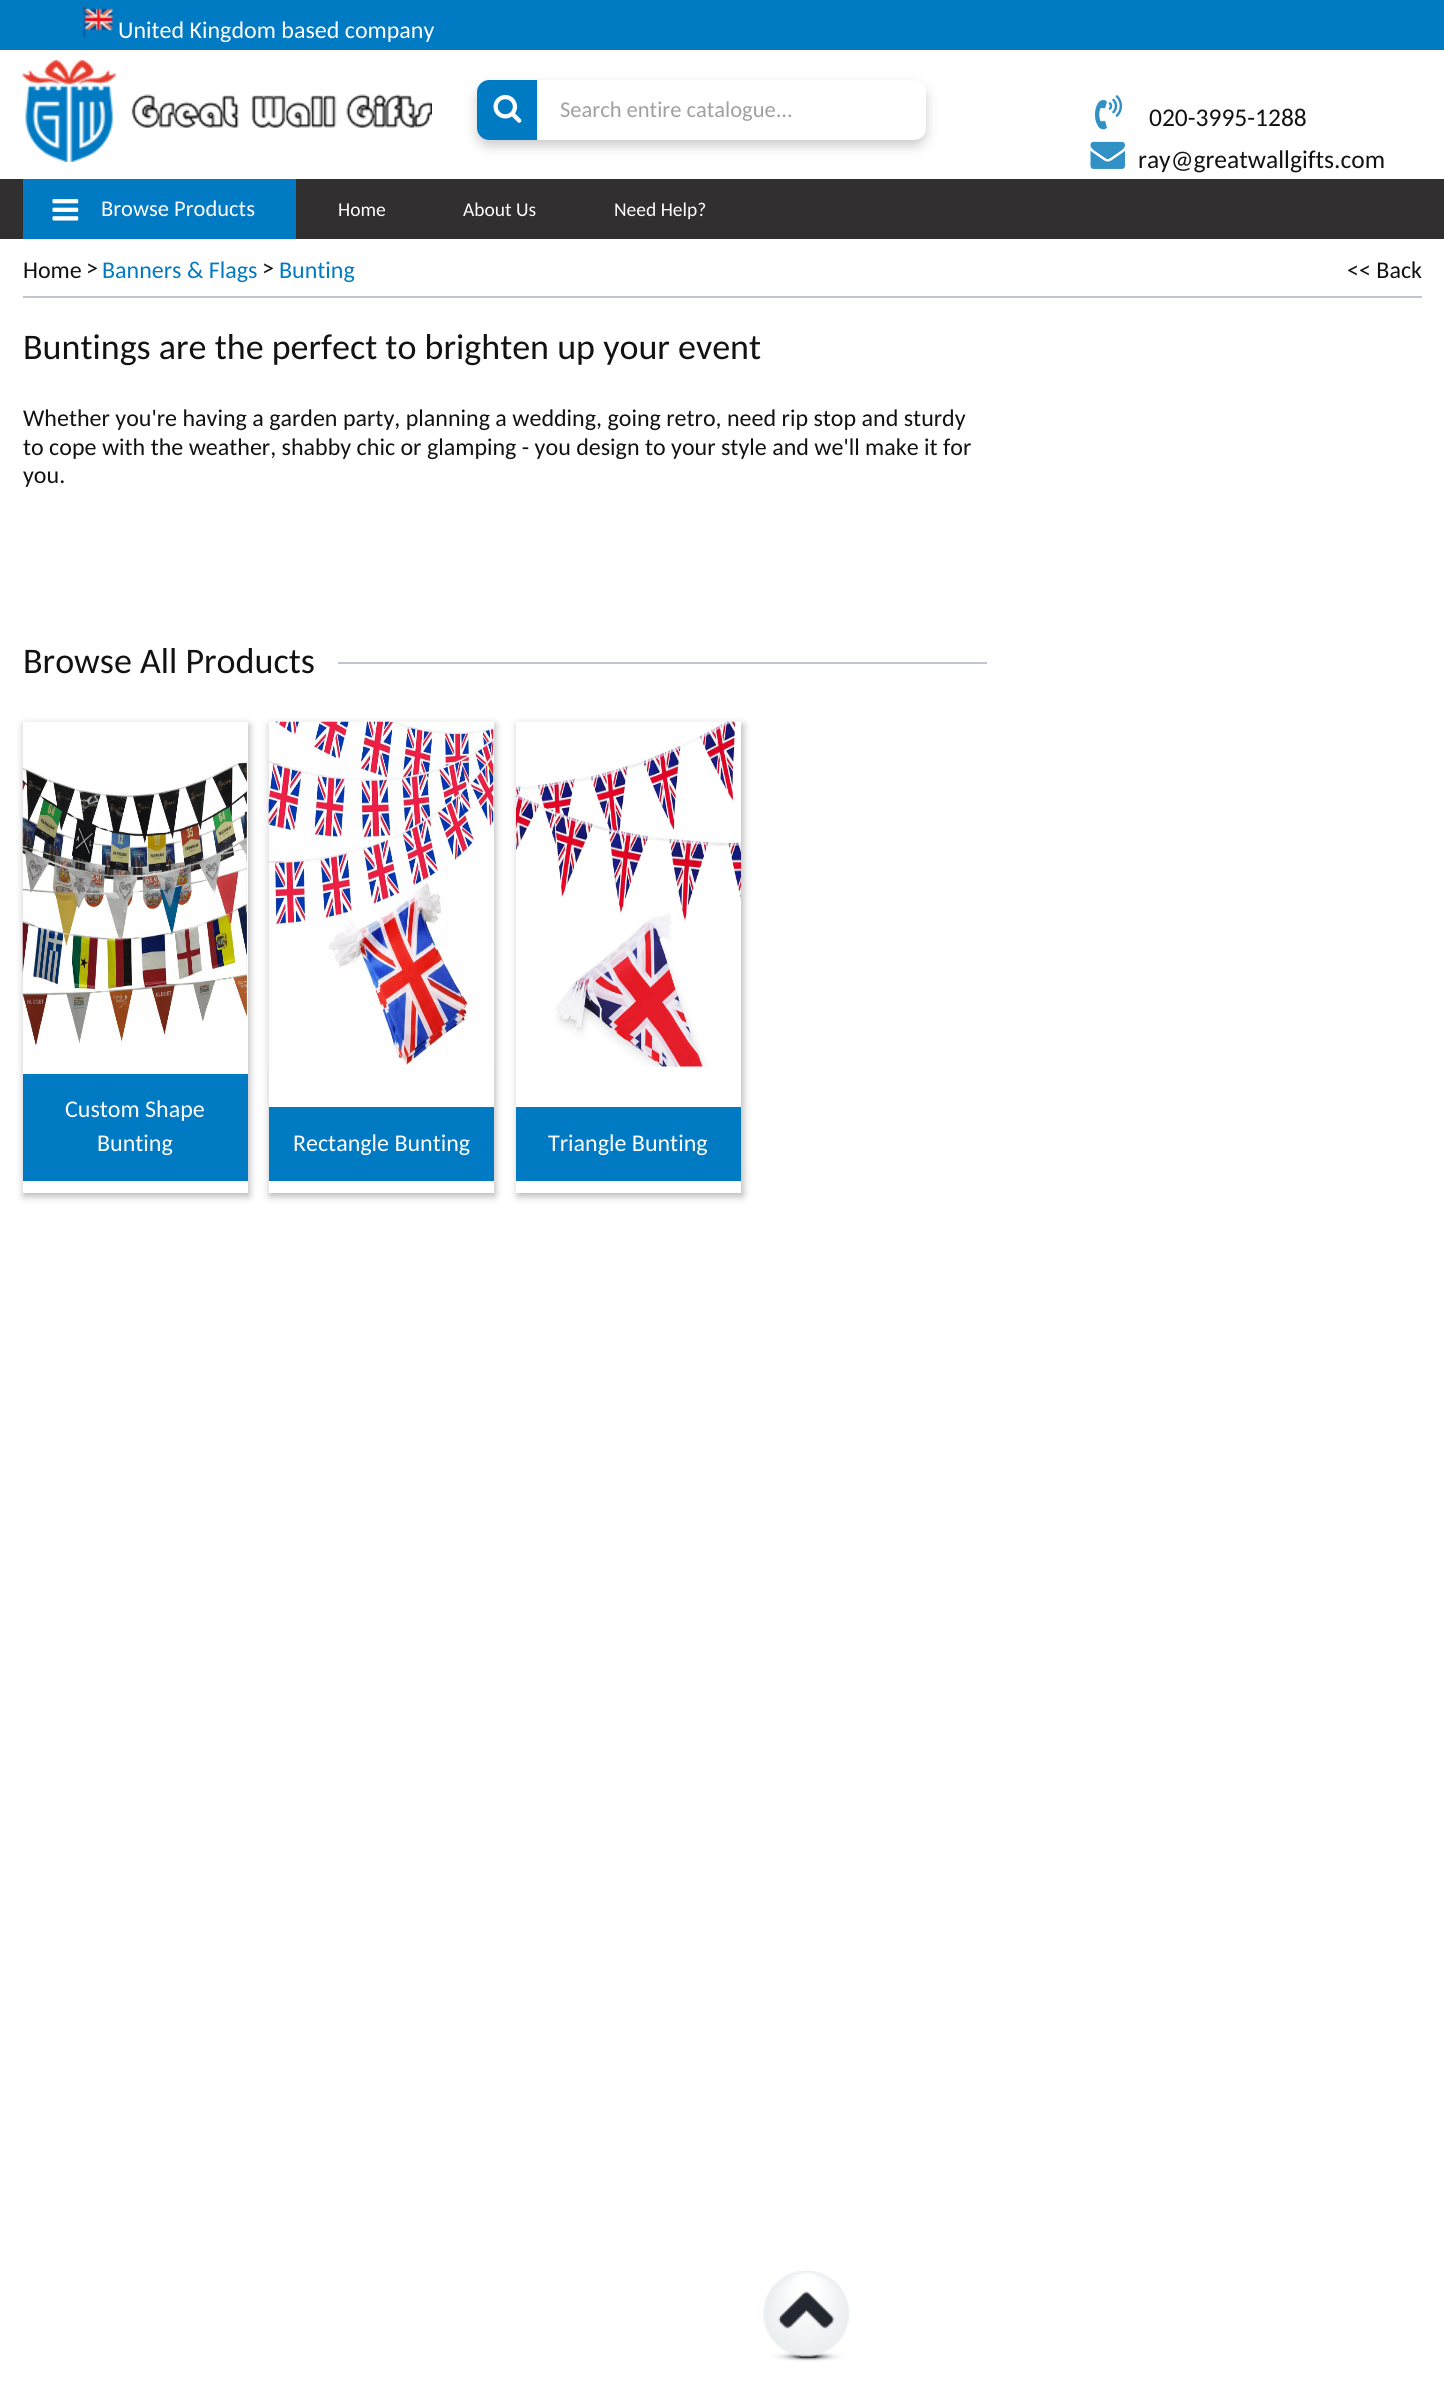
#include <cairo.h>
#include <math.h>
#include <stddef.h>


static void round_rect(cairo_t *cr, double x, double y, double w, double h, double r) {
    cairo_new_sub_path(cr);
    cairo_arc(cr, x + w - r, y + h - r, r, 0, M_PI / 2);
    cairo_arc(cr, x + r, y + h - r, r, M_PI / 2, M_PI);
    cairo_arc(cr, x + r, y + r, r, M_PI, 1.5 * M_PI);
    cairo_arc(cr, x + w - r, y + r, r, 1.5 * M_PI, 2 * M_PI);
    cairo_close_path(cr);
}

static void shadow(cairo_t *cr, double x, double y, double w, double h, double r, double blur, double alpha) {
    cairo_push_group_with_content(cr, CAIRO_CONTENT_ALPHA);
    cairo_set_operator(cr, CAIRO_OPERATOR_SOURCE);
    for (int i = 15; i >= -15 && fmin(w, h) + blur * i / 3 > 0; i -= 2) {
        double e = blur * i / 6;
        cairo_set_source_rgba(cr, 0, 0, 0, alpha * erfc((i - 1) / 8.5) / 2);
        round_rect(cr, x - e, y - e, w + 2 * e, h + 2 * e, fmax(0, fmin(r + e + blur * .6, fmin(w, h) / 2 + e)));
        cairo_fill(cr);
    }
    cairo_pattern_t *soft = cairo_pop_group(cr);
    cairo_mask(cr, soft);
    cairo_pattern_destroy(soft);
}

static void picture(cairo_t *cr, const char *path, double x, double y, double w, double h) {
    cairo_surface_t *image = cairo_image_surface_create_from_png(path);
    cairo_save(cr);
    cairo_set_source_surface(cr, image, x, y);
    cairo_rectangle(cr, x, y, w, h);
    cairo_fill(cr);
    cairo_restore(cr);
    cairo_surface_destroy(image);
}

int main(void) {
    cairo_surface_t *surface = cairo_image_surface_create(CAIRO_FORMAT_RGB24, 1444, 2399);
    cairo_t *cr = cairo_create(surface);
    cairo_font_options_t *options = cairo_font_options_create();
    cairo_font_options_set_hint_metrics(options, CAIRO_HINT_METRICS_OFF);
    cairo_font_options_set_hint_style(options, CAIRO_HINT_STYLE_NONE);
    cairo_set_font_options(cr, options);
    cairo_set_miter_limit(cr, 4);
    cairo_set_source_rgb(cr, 1, 1, 1);
    cairo_paint(cr);
    cairo_set_source_rgb(cr, 0, 0.478, 0.765);
    cairo_rectangle(cr, 0, 0, 1444, 50);
    cairo_fill(cr);
    picture(cr, "img1.png", 82, 6, 31, 32);
    cairo_select_font_face(cr, "Carlito", CAIRO_FONT_SLANT_NORMAL, CAIRO_FONT_WEIGHT_NORMAL);
    cairo_set_font_size(cr, 24);
    cairo_set_source_rgb(cr, 1, 1, 1);
    cairo_move_to(cr, 118, 38);
    cairo_show_text(cr, "United Kingdom based company");
    picture(cr, "img2.png", 22, 60, 410, 102);
    cairo_set_source_rgb(cr, 0, 0, 0);
    shadow(cr, 477, 86, 449, 60, 12, 6, 0.2);
    cairo_set_source_rgb(cr, 1, 1, 1);
    round_rect(cr, 477, 80, 449, 60, 12);
    cairo_fill(cr);
    cairo_set_source_rgb(cr, 0, 0.478, 0.765);
    cairo_new_path(cr);
    cairo_move_to(cr, 489, 80);
    cairo_line_to(cr, 537, 80);
    cairo_line_to(cr, 537, 140);
    cairo_line_to(cr, 489, 140);
    cairo_curve_to(cr, 482.5, 140, 477, 134.5, 477, 128);
    cairo_line_to(cr, 477, 92);
    cairo_curve_to(cr, 477, 85.5, 482.5, 80, 489, 80);
    cairo_close_path(cr);
    cairo_fill(cr);
    picture(cr, "img3.png", 493, 94, 29, 29);
    cairo_set_font_size(cr, 22.5);
    cairo_set_source_rgb(cr, 0.627, 0.627, 0.627);
    cairo_move_to(cr, 560, 117);
    cairo_show_text(cr, "Search entire catalogue...");
    picture(cr, "img4.png", 1095, 95, 28, 35);
    cairo_set_font_size(cr, 25.5);
    cairo_set_source_rgb(cr, 0.071, 0.071, 0.071);
    cairo_move_to(cr, 1149, 126);
    cairo_show_text(cr, "020-3995-1288");
    picture(cr, "img5.png", 1090, 141, 35, 28);
    cairo_move_to(cr, 1138, 168);
    cairo_show_text(cr, "ray@greatwallgifts.com");
    cairo_set_source_rgb(cr, 0.192, 0.184, 0.188);
    cairo_rectangle(cr, 0, 179, 1444, 60);
    cairo_fill(cr);
    cairo_set_source_rgb(cr, 0, 0.478, 0.765);
    cairo_rectangle(cr, 23, 179, 273, 60);
    cairo_fill(cr);
    picture(cr, "img6.png", 52, 199, 27, 22);
    cairo_set_font_size(cr, 22.5);
    cairo_set_source_rgb(cr, 1, 1, 1);
    cairo_move_to(cr, 101, 216);
    cairo_show_text(cr, "Browse Products");
    cairo_set_font_size(cr, 19.5);
    cairo_move_to(cr, 338, 216);
    cairo_show_text(cr, "Home");
    cairo_move_to(cr, 463, 216);
    cairo_show_text(cr, "About Us");
    cairo_move_to(cr, 614, 216);
    cairo_show_text(cr, "Need Help?");
    cairo_set_source_rgb(cr, 0.753, 0.773, 0.808);
    cairo_rectangle(cr, 23, 296, 1399, 2);
    cairo_fill(cr);
    cairo_set_font_size(cr, 24);
    cairo_set_source_rgb(cr, 0.071, 0.071, 0.071);
    cairo_move_to(cr, 23, 278);
    cairo_show_text(cr, "Home");
    cairo_move_to(cr, 86, 276);
    cairo_show_text(cr, ">");
    cairo_set_source_rgb(cr, 0, 0.478, 0.765);
    cairo_move_to(cr, 102, 278);
    cairo_show_text(cr, "Banners & Flags");
    cairo_set_source_rgb(cr, 0.071, 0.071, 0.071);
    cairo_move_to(cr, 262, 276);
    cairo_show_text(cr, ">");
    cairo_set_source_rgb(cr, 0, 0.478, 0.765);
    cairo_move_to(cr, 279, 278);
    cairo_show_text(cr, "Bunting");
    cairo_set_source_rgb(cr, 0.071, 0.071, 0.071);
    cairo_move_to(cr, 1347, 278);
    cairo_show_text(cr, "<< Back");
    cairo_set_font_size(cr, 36);
    cairo_move_to(cr, 23, 359);
    cairo_show_text(cr, "Buntings are the perfect to brighten up your event");
    cairo_set_font_size(cr, 24);
    cairo_move_to(cr, 23, 426);
    cairo_show_text(cr, "Whether you're having a garden party, planning a wedding, going retro, need rip stop and sturdy");
    cairo_move_to(cr, 23, 455);
    cairo_show_text(cr, "to cope with the weather, shabby chic or glamping - you design to your style and we'll make it for");
    cairo_move_to(cr, 23, 483);
    cairo_show_text(cr, "you.");
    cairo_set_font_size(cr, 36);
    cairo_move_to(cr, 23, 673);
    cairo_show_text(cr, "Browse All Products");
    cairo_set_source_rgb(cr, 0.753, 0.773, 0.808);
    cairo_rectangle(cr, 338, 662, 649, 2);
    cairo_fill(cr);
    cairo_save(cr);
    cairo_set_fill_rule(cr, CAIRO_FILL_RULE_EVEN_ODD);
    cairo_new_path(cr);
    cairo_move_to(cr, 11, 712);
    cairo_line_to(cr, 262, 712);
    cairo_line_to(cr, 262, 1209);
    cairo_line_to(cr, 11, 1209);
    cairo_close_path(cr);
    cairo_move_to(cr, 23, 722);
    cairo_line_to(cr, 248, 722);
    cairo_line_to(cr, 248, 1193);
    cairo_line_to(cr, 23, 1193);
    cairo_close_path(cr);
    cairo_clip(cr);
    cairo_set_source_rgb(cr, 0, 0, 0);
    shadow(cr, 24, 725, 225, 471, 0, 4, 0.3);
    cairo_restore(cr);
    picture(cr, "img7.png", 22, 726, 226, 340);
    cairo_set_source_rgb(cr, 0, 0.478, 0.765);
    cairo_rectangle(cr, 23, 1074, 225, 107);
    cairo_fill(cr);
    cairo_set_font_size(cr, 24);
    cairo_set_source_rgb(cr, 1, 1, 1);
    cairo_move_to(cr, 65, 1117);
    cairo_show_text(cr, "Custom Shape");
    cairo_move_to(cr, 97, 1151);
    cairo_show_text(cr, "Bunting");
    cairo_save(cr);
    cairo_set_fill_rule(cr, CAIRO_FILL_RULE_EVEN_ODD);
    cairo_new_path(cr);
    cairo_move_to(cr, 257, 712);
    cairo_line_to(cr, 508, 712);
    cairo_line_to(cr, 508, 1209);
    cairo_line_to(cr, 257, 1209);
    cairo_close_path(cr);
    cairo_move_to(cr, 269, 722);
    cairo_line_to(cr, 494, 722);
    cairo_line_to(cr, 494, 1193);
    cairo_line_to(cr, 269, 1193);
    cairo_close_path(cr);
    cairo_clip(cr);
    cairo_set_source_rgb(cr, 0, 0, 0);
    shadow(cr, 270, 725, 225, 471, 0, 4, 0.3);
    cairo_restore(cr);
    picture(cr, "img8.png", 268, 721, 226, 345);
    cairo_set_source_rgb(cr, 0, 0.478, 0.765);
    cairo_rectangle(cr, 269, 1107, 225, 74);
    cairo_fill(cr);
    cairo_set_source_rgb(cr, 1, 1, 1);
    cairo_move_to(cr, 293, 1151);
    cairo_show_text(cr, "Rectangle Bunting");
    cairo_save(cr);
    cairo_set_fill_rule(cr, CAIRO_FILL_RULE_EVEN_ODD);
    cairo_new_path(cr);
    cairo_move_to(cr, 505, 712);
    cairo_line_to(cr, 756, 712);
    cairo_line_to(cr, 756, 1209);
    cairo_line_to(cr, 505, 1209);
    cairo_close_path(cr);
    cairo_move_to(cr, 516, 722);
    cairo_line_to(cr, 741, 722);
    cairo_line_to(cr, 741, 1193);
    cairo_line_to(cr, 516, 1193);
    cairo_close_path(cr);
    cairo_clip(cr);
    cairo_set_source_rgb(cr, 0, 0, 0);
    shadow(cr, 518, 725, 225, 471, 0, 4, 0.3);
    cairo_restore(cr);
    picture(cr, "img9.png", 516, 721, 225, 346);
    cairo_set_source_rgb(cr, 0, 0.478, 0.765);
    cairo_rectangle(cr, 516, 1107, 225, 74);
    cairo_fill(cr);
    cairo_set_source_rgb(cr, 1, 1, 1);
    cairo_move_to(cr, 548, 1151);
    cairo_show_text(cr, "Triangle Bunting");
    picture(cr, "img10.png", 763, 2270, 87, 92);
    cairo_surface_write_to_png(surface, "page.png");
    cairo_font_options_destroy(options);
    cairo_destroy(cr);
    cairo_surface_destroy(surface);
    return 0;
}
